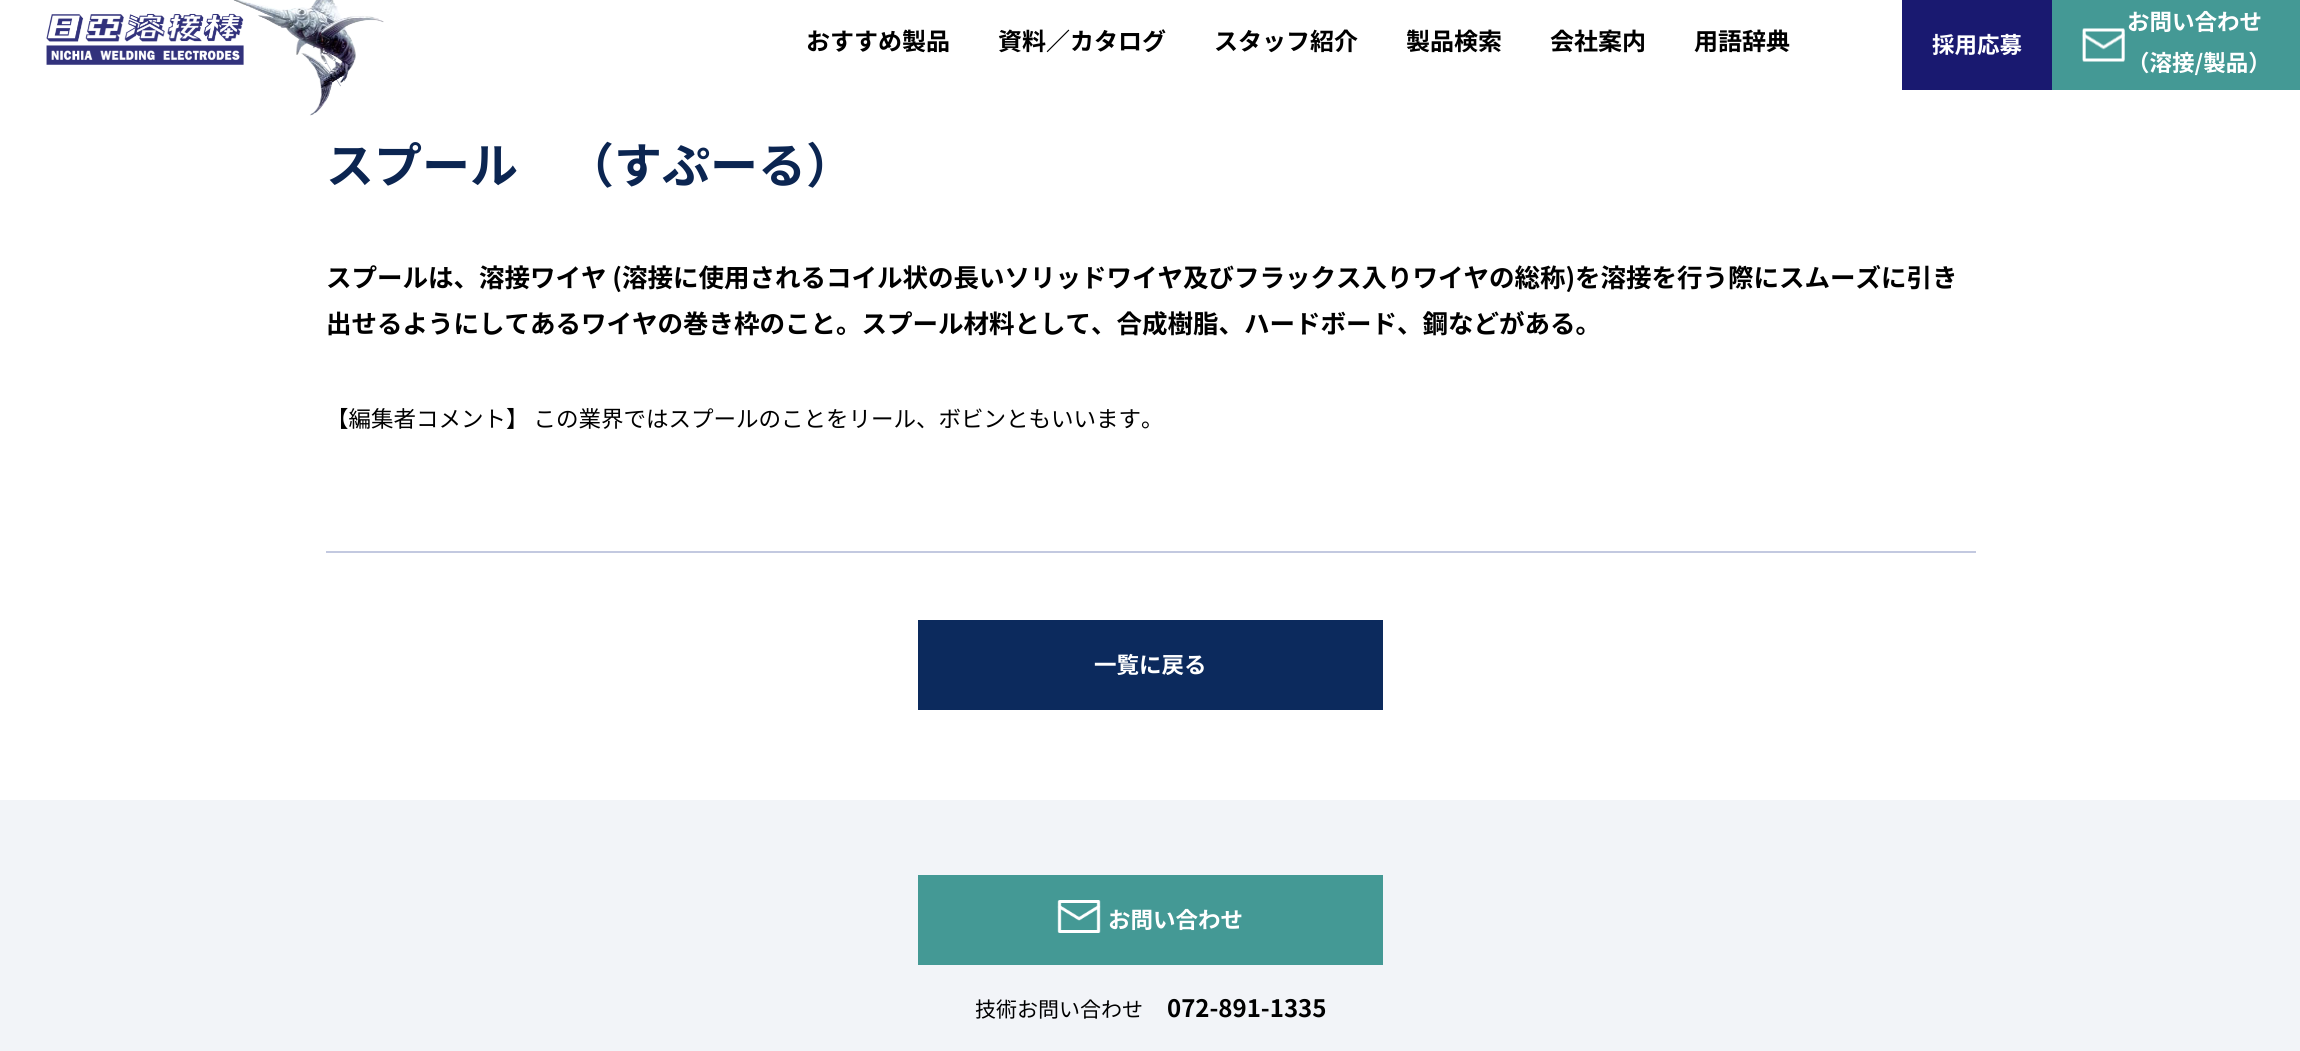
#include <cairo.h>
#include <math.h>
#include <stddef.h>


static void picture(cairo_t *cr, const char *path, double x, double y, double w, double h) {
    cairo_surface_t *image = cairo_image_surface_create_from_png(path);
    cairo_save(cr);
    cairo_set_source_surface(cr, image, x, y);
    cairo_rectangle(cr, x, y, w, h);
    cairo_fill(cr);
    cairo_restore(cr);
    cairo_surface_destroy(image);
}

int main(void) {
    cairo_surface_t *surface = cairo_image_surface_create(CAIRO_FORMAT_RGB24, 2300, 1051);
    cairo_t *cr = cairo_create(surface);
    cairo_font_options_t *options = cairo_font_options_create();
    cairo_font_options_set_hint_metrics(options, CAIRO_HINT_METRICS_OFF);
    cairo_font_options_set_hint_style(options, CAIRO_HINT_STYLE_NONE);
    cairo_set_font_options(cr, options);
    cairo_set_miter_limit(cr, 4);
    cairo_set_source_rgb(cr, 1, 1, 1);
    cairo_paint(cr);
    picture(cr, "img1.png", 46, 0, 338, 116);
    cairo_select_font_face(cr, "Noto Sans JP", CAIRO_FONT_SLANT_NORMAL, CAIRO_FONT_WEIGHT_BOLD);
    cairo_set_font_size(cr, 24);
    cairo_set_source_rgb(cr, 0, 0, 0);
    cairo_move_to(cr, 806, 50);
    cairo_show_text(cr, "おすすめ製品");
    cairo_move_to(cr, 998, 50);
    cairo_show_text(cr, "資料／カタログ");
    cairo_move_to(cr, 1214, 50);
    cairo_show_text(cr, "スタッフ紹介");
    cairo_move_to(cr, 1406, 50);
    cairo_show_text(cr, "製品検索");
    cairo_move_to(cr, 1550, 50);
    cairo_show_text(cr, "会社案内");
    cairo_move_to(cr, 1694, 50);
    cairo_show_text(cr, "用語辞典");
    cairo_set_source_rgb(cr, 0.098, 0.098, 0.439);
    cairo_rectangle(cr, 1902, 0, 150, 90);
    cairo_fill(cr);
    cairo_set_font_size(cr, 22.5);
    cairo_set_source_rgb(cr, 1, 1, 1);
    cairo_move_to(cr, 1932, 53);
    cairo_show_text(cr, "採用応募");
    cairo_set_source_rgb(cr, 0.267, 0.6, 0.584);
    cairo_rectangle(cr, 2052, 0, 248, 90);
    cairo_fill(cr);
    cairo_set_source_rgb(cr, 1, 1, 1);
    cairo_move_to(cr, 2127, 30);
    cairo_show_text(cr, "お問い合わせ");
    picture(cr, "img2.png", 2082, 28, 43, 34);
    cairo_move_to(cr, 2127, 71);
    cairo_show_text(cr, "（溶接/製品）");
    cairo_set_font_size(cr, 48);
    cairo_set_source_rgb(cr, 0.043, 0.145, 0.318);
    cairo_move_to(cr, 326, 183);
    cairo_show_text(cr, "スプール");
    cairo_move_to(cr, 566, 183);
    cairo_show_text(cr, "（すぷーる）");
    cairo_set_font_size(cr, 25.5);
    cairo_set_source_rgb(cr, 0, 0, 0);
    cairo_move_to(cr, 326, 287);
    cairo_show_text(cr, "スプールは、溶接ワイヤ (溶接に使用されるコイル状の長いソリッドワイヤ及びフラックス入りワイヤの総称)を溶接を行う際にスムーズに引き");
    cairo_move_to(cr, 326, 333);
    cairo_show_text(cr, "出せるようにしてあるワイヤの巻き枠のこと。スプール材料として、合成樹脂、ハードボード、鋼などがある。");
    cairo_select_font_face(cr, "Noto Sans JP", CAIRO_FONT_SLANT_NORMAL, CAIRO_FONT_WEIGHT_NORMAL);
    cairo_set_font_size(cr, 22.5);
    cairo_move_to(cr, 326, 427);
    cairo_show_text(cr, "【編集者コメント】 この業界ではスプールのことをリール、ボビンともいいます。");
    cairo_set_source_rgb(cr, 0.765, 0.788, 0.878);
    cairo_rectangle(cr, 326, 551, 1650, 2);
    cairo_fill(cr);
    cairo_set_source_rgb(cr, 0.047, 0.165, 0.365);
    cairo_rectangle(cr, 918, 620, 465, 90);
    cairo_fill(cr);
    cairo_select_font_face(cr, "Noto Sans JP", CAIRO_FONT_SLANT_NORMAL, CAIRO_FONT_WEIGHT_BOLD);
    cairo_set_source_rgb(cr, 1, 1, 1);
    cairo_move_to(cr, 1094, 673);
    cairo_show_text(cr, "一覧に戻る");
    cairo_set_source_rgb(cr, 0.949, 0.957, 0.969);
    cairo_rectangle(cr, 0, 800, 2300, 251);
    cairo_fill(cr);
    cairo_set_source_rgb(cr, 0.267, 0.6, 0.584);
    cairo_rectangle(cr, 918, 875, 465, 90);
    cairo_fill(cr);
    picture(cr, "img3.png", 1057, 900, 44, 33);
    cairo_set_source_rgb(cr, 1, 1, 1);
    cairo_move_to(cr, 1108, 928);
    cairo_show_text(cr, "お問い合わせ");
    cairo_select_font_face(cr, "Noto Sans JP", CAIRO_FONT_SLANT_NORMAL, CAIRO_FONT_WEIGHT_NORMAL);
    cairo_set_font_size(cr, 21);
    cairo_set_source_rgb(cr, 0, 0, 0);
    cairo_move_to(cr, 975, 1017);
    cairo_show_text(cr, "技術お問い合わせ");
    cairo_select_font_face(cr, "Noto Sans JP", CAIRO_FONT_SLANT_NORMAL, CAIRO_FONT_WEIGHT_BOLD);
    cairo_set_font_size(cr, 24);
    cairo_move_to(cr, 1167, 1017);
    cairo_show_text(cr, "072-891-1335");
    cairo_surface_write_to_png(surface, "page.png");
    cairo_font_options_destroy(options);
    cairo_destroy(cr);
    cairo_surface_destroy(surface);
    return 0;
}
